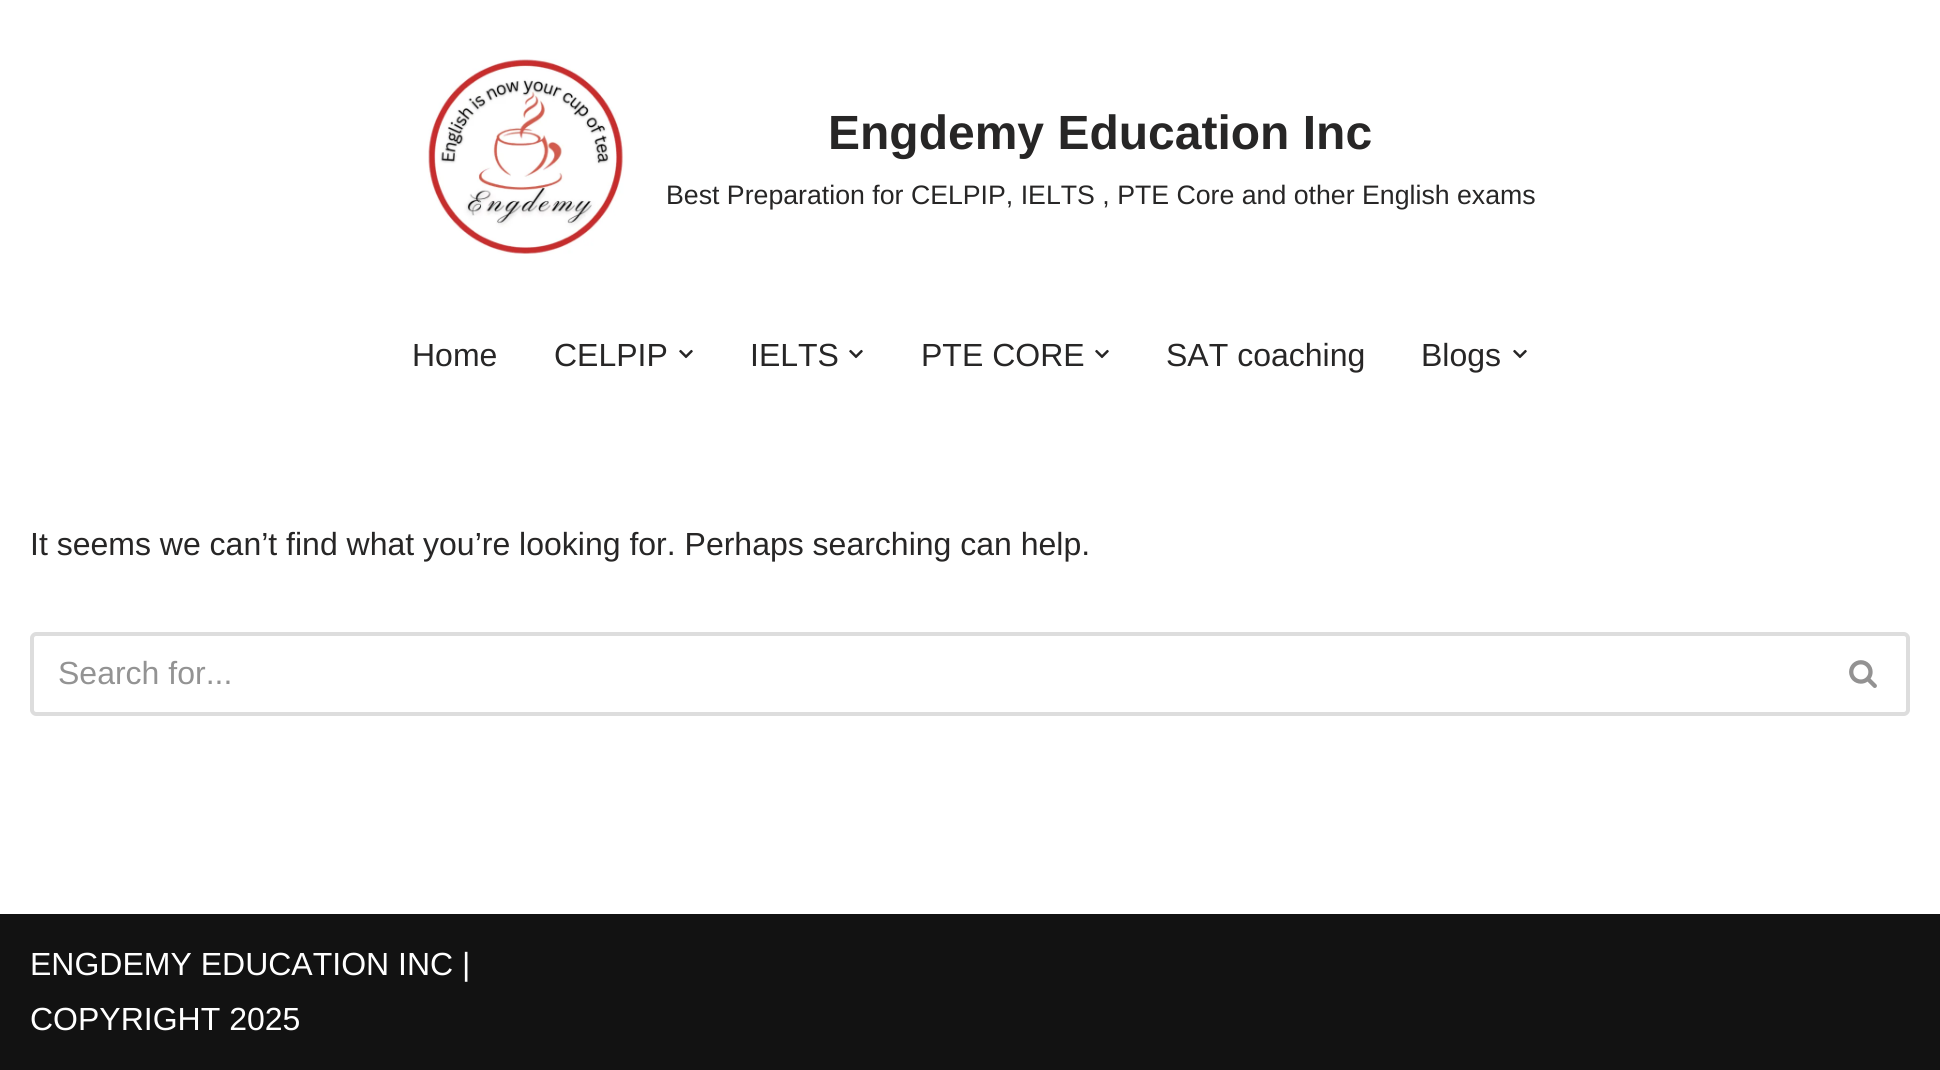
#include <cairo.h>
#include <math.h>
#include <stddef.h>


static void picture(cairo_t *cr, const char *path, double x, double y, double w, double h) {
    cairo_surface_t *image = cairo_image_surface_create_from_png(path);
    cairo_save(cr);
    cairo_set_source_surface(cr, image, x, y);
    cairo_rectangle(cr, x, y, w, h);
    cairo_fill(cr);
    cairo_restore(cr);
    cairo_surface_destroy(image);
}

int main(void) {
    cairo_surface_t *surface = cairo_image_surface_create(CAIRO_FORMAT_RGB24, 1940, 1070);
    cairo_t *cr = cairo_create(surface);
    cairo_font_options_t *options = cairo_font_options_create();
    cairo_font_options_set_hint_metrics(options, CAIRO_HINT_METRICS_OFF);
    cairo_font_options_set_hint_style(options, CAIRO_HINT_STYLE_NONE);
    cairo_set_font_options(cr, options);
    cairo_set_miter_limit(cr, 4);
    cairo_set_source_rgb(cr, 1, 1, 1);
    cairo_paint(cr);
    picture(cr, "img1.png", 428, 59, 196, 195);
    cairo_select_font_face(cr, "Liberation Sans", CAIRO_FONT_SLANT_NORMAL, CAIRO_FONT_WEIGHT_BOLD);
    cairo_set_font_size(cr, 48);
    cairo_set_source_rgb(cr, 0.153, 0.149, 0.149);
    cairo_move_to(cr, 828, 149);
    cairo_show_text(cr, "Engdemy Education Inc");
    cairo_select_font_face(cr, "Liberation Sans", CAIRO_FONT_SLANT_NORMAL, CAIRO_FONT_WEIGHT_NORMAL);
    cairo_set_font_size(cr, 26.7);
    cairo_move_to(cr, 666, 204);
    cairo_show_text(cr, "Best Preparation for CELPIP, IELTS , PTE Core and other English exams");
    cairo_set_font_size(cr, 32);
    cairo_move_to(cr, 412, 366);
    cairo_show_text(cr, "Home");
    cairo_move_to(cr, 554, 366);
    cairo_show_text(cr, "CELPIP");
    picture(cr, "img2.png", 679, 349, 14, 10);
    cairo_move_to(cr, 750, 366);
    cairo_show_text(cr, "IELTS");
    picture(cr, "img2.png", 849, 349, 14, 10);
    cairo_move_to(cr, 921, 366);
    cairo_show_text(cr, "PTE CORE");
    picture(cr, "img2.png", 1095, 349, 14, 10);
    cairo_move_to(cr, 1166, 366);
    cairo_show_text(cr, "SAT coaching");
    cairo_move_to(cr, 1421, 366);
    cairo_show_text(cr, "Blogs");
    picture(cr, "img2.png", 1513, 349, 14, 10);
    cairo_move_to(cr, 30, 555);
    cairo_show_text(cr, "It seems we can’t find what you’re looking for. Perhaps searching can help.");
    cairo_set_source_rgb(cr, 0.867, 0.867, 0.867);
    cairo_set_fill_rule(cr, CAIRO_FILL_RULE_EVEN_ODD);
    cairo_new_path(cr);
    cairo_move_to(cr, 36, 632);
    cairo_line_to(cr, 1820, 632);
    cairo_line_to(cr, 1820, 716);
    cairo_line_to(cr, 36, 716);
    cairo_curve_to(cr, 33, 716, 30, 713, 30, 710);
    cairo_line_to(cr, 30, 638);
    cairo_curve_to(cr, 30, 635, 33, 632, 36, 632);
    cairo_close_path(cr);
    cairo_move_to(cr, 36, 636);
    cairo_line_to(cr, 1820, 636);
    cairo_line_to(cr, 1820, 712);
    cairo_line_to(cr, 36, 712);
    cairo_curve_to(cr, 35, 712, 34, 711, 34, 710);
    cairo_line_to(cr, 34, 638);
    cairo_curve_to(cr, 34, 637, 35, 636, 36, 636);
    cairo_close_path(cr);
    cairo_fill(cr);
    cairo_set_source_rgb(cr, 0.576, 0.576, 0.576);
    cairo_move_to(cr, 58, 684);
    cairo_show_text(cr, "Search for...");
    cairo_set_source_rgb(cr, 0.867, 0.867, 0.867);
    cairo_new_path(cr);
    cairo_move_to(cr, 1820, 632);
    cairo_line_to(cr, 1904, 632);
    cairo_curve_to(cr, 1907, 632, 1910, 635, 1910, 638);
    cairo_line_to(cr, 1910, 710);
    cairo_curve_to(cr, 1910, 713, 1907, 716, 1904, 716);
    cairo_line_to(cr, 1820, 716);
    cairo_close_path(cr);
    cairo_move_to(cr, 1820, 636);
    cairo_line_to(cr, 1904, 636);
    cairo_curve_to(cr, 1905, 636, 1906, 637, 1906, 638);
    cairo_line_to(cr, 1906, 710);
    cairo_curve_to(cr, 1906, 711, 1905, 712, 1904, 712);
    cairo_line_to(cr, 1820, 712);
    cairo_close_path(cr);
    cairo_fill(cr);
    picture(cr, "img3.png", 1849, 660, 28, 28);
    cairo_set_source_rgb(cr, 0.071, 0.071, 0.071);
    cairo_rectangle(cr, 0, 914, 1940, 156);
    cairo_fill(cr);
    cairo_set_source_rgb(cr, 1, 1, 1);
    cairo_move_to(cr, 30, 975);
    cairo_show_text(cr, "ENGDEMY EDUCATION INC |");
    cairo_move_to(cr, 30, 1030);
    cairo_show_text(cr, "COPYRIGHT 2025");
    cairo_surface_write_to_png(surface, "page.png");
    cairo_font_options_destroy(options);
    cairo_destroy(cr);
    cairo_surface_destroy(surface);
    return 0;
}
